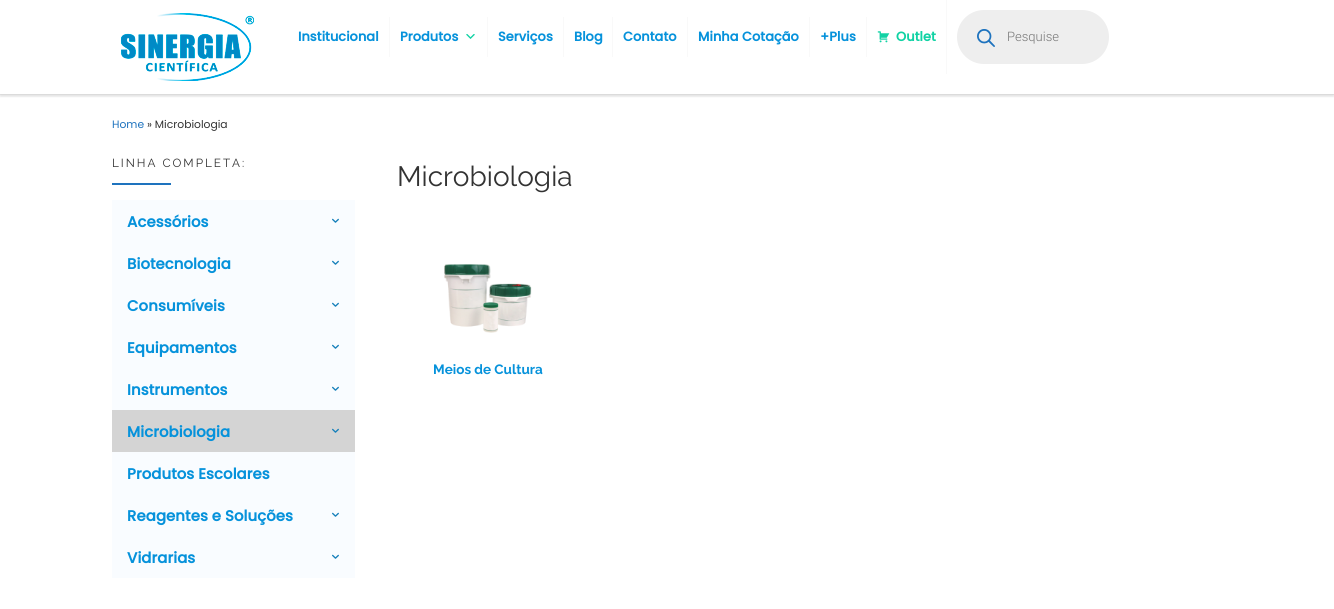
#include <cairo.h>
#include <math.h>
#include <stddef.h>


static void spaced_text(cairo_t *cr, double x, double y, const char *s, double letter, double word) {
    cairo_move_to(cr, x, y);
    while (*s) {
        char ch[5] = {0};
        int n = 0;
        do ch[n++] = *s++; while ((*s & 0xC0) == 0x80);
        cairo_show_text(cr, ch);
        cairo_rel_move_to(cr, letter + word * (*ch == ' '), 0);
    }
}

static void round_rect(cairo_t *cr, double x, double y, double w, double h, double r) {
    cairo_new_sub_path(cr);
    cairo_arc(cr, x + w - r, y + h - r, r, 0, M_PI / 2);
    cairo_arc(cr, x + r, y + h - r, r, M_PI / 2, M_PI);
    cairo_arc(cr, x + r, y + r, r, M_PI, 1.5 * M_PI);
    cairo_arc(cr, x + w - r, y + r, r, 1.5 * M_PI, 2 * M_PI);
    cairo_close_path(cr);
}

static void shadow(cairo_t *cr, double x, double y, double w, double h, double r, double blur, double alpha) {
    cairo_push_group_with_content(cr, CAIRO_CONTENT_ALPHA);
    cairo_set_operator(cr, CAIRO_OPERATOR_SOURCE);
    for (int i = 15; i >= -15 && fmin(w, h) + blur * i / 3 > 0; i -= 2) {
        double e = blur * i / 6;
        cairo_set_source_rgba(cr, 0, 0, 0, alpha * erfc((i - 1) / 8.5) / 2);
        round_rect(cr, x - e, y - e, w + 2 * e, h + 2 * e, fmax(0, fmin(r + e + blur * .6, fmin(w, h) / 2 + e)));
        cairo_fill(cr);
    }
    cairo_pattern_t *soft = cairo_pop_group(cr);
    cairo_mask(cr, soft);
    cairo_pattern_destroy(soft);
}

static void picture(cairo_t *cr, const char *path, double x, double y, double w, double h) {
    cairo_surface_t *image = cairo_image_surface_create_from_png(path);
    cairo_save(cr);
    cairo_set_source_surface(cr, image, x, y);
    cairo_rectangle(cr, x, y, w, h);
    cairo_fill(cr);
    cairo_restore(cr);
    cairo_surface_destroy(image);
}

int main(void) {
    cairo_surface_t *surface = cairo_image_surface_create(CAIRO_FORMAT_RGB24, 1334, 609);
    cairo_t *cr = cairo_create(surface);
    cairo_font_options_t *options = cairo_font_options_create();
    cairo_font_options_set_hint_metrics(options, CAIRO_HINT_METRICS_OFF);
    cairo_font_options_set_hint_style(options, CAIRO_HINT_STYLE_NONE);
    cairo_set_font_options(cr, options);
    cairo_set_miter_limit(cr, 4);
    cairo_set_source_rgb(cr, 1, 1, 1);
    cairo_paint(cr);
    cairo_save(cr);
    cairo_rectangle(cr, 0, 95, 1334, 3);
    cairo_clip(cr);
    cairo_set_source_rgb(cr, 0.4, 0.4, 0.4);
    shadow(cr, 0, 2, 1334, 95, 0, 1, 0.08);
    cairo_restore(cr);
    cairo_set_source_rgb(cr, 0.937, 0.937, 0.937);
    cairo_rectangle(cr, 0, 94, 1334, 1);
    cairo_fill(cr);
    cairo_save(cr);
    cairo_rectangle(cr, 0, 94, 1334, 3);
    cairo_clip(cr);
    cairo_set_source_rgb(cr, 0, 0, 0);
    shadow(cr, 0, 0, 1334, 94, 0, 2.5, 0.2);
    cairo_restore(cr);
    picture(cr, "img1.png", 121, 13, 133, 68);
    cairo_select_font_face(cr, "Poppins", CAIRO_FONT_SLANT_NORMAL, CAIRO_FONT_WEIGHT_BOLD);
    cairo_set_font_size(cr, 13);
    cairo_set_source_rgb(cr, 0.024, 0.573, 0.859);
    cairo_move_to(cr, 298, 41);
    cairo_show_text(cr, "Institucional");
    cairo_set_source_rgb(cr, 0.973, 0.973, 0.973);
    cairo_rectangle(cr, 389, 17, 1, 40);
    cairo_fill(cr);
    cairo_set_source_rgb(cr, 0.024, 0.573, 0.859);
    cairo_move_to(cr, 400, 41);
    cairo_show_text(cr, "Produtos");
    picture(cr, "img2.png", 466, 34, 9, 5);
    cairo_set_source_rgb(cr, 0.973, 0.973, 0.973);
    cairo_rectangle(cr, 487, 17, 1, 40);
    cairo_fill(cr);
    cairo_set_source_rgb(cr, 0.024, 0.573, 0.859);
    cairo_move_to(cr, 498, 41);
    cairo_show_text(cr, "Serviços");
    cairo_set_source_rgb(cr, 0.973, 0.973, 0.973);
    cairo_rectangle(cr, 563, 17, 1, 40);
    cairo_fill(cr);
    cairo_set_source_rgb(cr, 0.024, 0.573, 0.859);
    cairo_move_to(cr, 574, 41);
    cairo_show_text(cr, "Blog");
    cairo_set_source_rgb(cr, 0.973, 0.973, 0.973);
    cairo_rectangle(cr, 612, 17, 1, 40);
    cairo_fill(cr);
    cairo_set_source_rgb(cr, 0.024, 0.573, 0.859);
    cairo_move_to(cr, 623, 41);
    cairo_show_text(cr, "Contato");
    cairo_set_source_rgb(cr, 0.973, 0.973, 0.973);
    cairo_rectangle(cr, 687, 17, 1, 40);
    cairo_fill(cr);
    cairo_set_source_rgb(cr, 0.024, 0.573, 0.859);
    cairo_move_to(cr, 698, 41);
    cairo_show_text(cr, "Minha Cotação");
    cairo_set_source_rgb(cr, 0.973, 0.973, 0.973);
    cairo_rectangle(cr, 809, 17, 1, 40);
    cairo_fill(cr);
    cairo_set_source_rgb(cr, 0.024, 0.573, 0.859);
    cairo_move_to(cr, 820, 41);
    cairo_show_text(cr, "+Plus");
    cairo_set_source_rgb(cr, 0.973, 0.973, 0.973);
    cairo_rectangle(cr, 866, 17, 1, 40);
    cairo_fill(cr);
    picture(cr, "img3.png", 877, 31, 13, 12);
    cairo_set_source_rgb(cr, 0.067, 0.824, 0.643);
    cairo_move_to(cr, 896, 41);
    cairo_show_text(cr, "Outlet");
    cairo_set_source_rgb(cr, 0.973, 0.973, 0.973);
    cairo_rectangle(cr, 946, 0, 1, 74);
    cairo_fill(cr);
    cairo_set_source_rgb(cr, 0.933, 0.933, 0.933);
    round_rect(cr, 957, 10, 152, 54, 27);
    cairo_fill(cr);
    picture(cr, "img4.png", 977, 29, 18, 18);
    cairo_select_font_face(cr, "Roboto Light", CAIRO_FONT_SLANT_NORMAL, CAIRO_FONT_WEIGHT_NORMAL);
    cairo_set_source_rgb(cr, 0.467, 0.467, 0.467);
    cairo_move_to(cr, 1007, 41);
    cairo_show_text(cr, "Pesquise");
    cairo_select_font_face(cr, "Poppins", CAIRO_FONT_SLANT_NORMAL, CAIRO_FONT_WEIGHT_NORMAL);
    cairo_set_font_size(cr, 10.75);
    cairo_set_source_rgb(cr, 0.118, 0.451, 0.745);
    cairo_move_to(cr, 112, 128);
    cairo_show_text(cr, "Home");
    cairo_set_source_rgb(cr, 0.2, 0.2, 0.2);
    cairo_move_to(cr, 147, 128);
    cairo_show_text(cr, "» Microbiologia");
    cairo_select_font_face(cr, "Raleway", CAIRO_FONT_SLANT_NORMAL, CAIRO_FONT_WEIGHT_NORMAL);
    cairo_set_font_size(cr, 11.75);
    spaced_text(cr, 112, 167, "LINHA COMPLETA:", 2, 0);
    cairo_set_source_rgb(cr, 0.118, 0.451, 0.745);
    cairo_rectangle(cr, 112, 183, 59, 2);
    cairo_fill(cr);
    cairo_set_source_rgb(cr, 0.976, 0.988, 1);
    cairo_rectangle(cr, 112, 200, 243, 210);
    cairo_fill(cr);
    cairo_select_font_face(cr, "Poppins", CAIRO_FONT_SLANT_NORMAL, CAIRO_FONT_WEIGHT_BOLD);
    cairo_set_font_size(cr, 15);
    cairo_set_source_rgb(cr, 0.024, 0.573, 0.859);
    cairo_move_to(cr, 127, 227);
    cairo_show_text(cr, "Acessórios");
    picture(cr, "img5.png", 332, 218, 7, 5);
    cairo_move_to(cr, 127, 269);
    cairo_show_text(cr, "Biotecnologia");
    picture(cr, "img5.png", 332, 260, 7, 5);
    cairo_move_to(cr, 127, 311);
    cairo_show_text(cr, "Consumíveis");
    picture(cr, "img5.png", 332, 302, 7, 5);
    cairo_move_to(cr, 127, 353);
    cairo_show_text(cr, "Equipamentos");
    picture(cr, "img5.png", 332, 344, 7, 5);
    cairo_move_to(cr, 127, 395);
    cairo_show_text(cr, "Instrumentos");
    picture(cr, "img5.png", 332, 386, 7, 5);
    cairo_set_source_rgb(cr, 0.831, 0.831, 0.831);
    cairo_rectangle(cr, 112, 410, 243, 42);
    cairo_fill(cr);
    cairo_set_source_rgb(cr, 0.024, 0.573, 0.859);
    cairo_move_to(cr, 127, 437);
    cairo_show_text(cr, "Microbiologia");
    picture(cr, "img6.png", 332, 428, 7, 5);
    cairo_set_source_rgb(cr, 0.976, 0.988, 1);
    cairo_rectangle(cr, 112, 452, 243, 126);
    cairo_fill(cr);
    cairo_set_source_rgb(cr, 0.024, 0.573, 0.859);
    cairo_move_to(cr, 127, 479);
    cairo_show_text(cr, "Produtos Escolares");
    cairo_move_to(cr, 127, 521);
    cairo_show_text(cr, "Reagentes e Soluções");
    picture(cr, "img5.png", 332, 512, 7, 5);
    cairo_move_to(cr, 127, 563);
    cairo_show_text(cr, "Vidrarias");
    picture(cr, "img5.png", 332, 554, 7, 5);
    cairo_select_font_face(cr, "Raleway", CAIRO_FONT_SLANT_NORMAL, CAIRO_FONT_WEIGHT_NORMAL);
    cairo_set_font_size(cr, 28);
    cairo_set_source_rgb(cr, 0.2, 0.2, 0.2);
    cairo_move_to(cr, 397, 186);
    cairo_show_text(cr, "Microbiologia");
    picture(cr, "img7.png", 444, 264, 88, 69);
    cairo_select_font_face(cr, "Raleway", CAIRO_FONT_SLANT_NORMAL, CAIRO_FONT_WEIGHT_BOLD);
    cairo_set_font_size(cr, 13.5);
    cairo_set_source_rgb(cr, 0.024, 0.573, 0.859);
    cairo_move_to(cr, 433, 374);
    cairo_show_text(cr, "Meios de Cultura");
    cairo_surface_write_to_png(surface, "page.png");
    cairo_font_options_destroy(options);
    cairo_destroy(cr);
    cairo_surface_destroy(surface);
    return 0;
}
